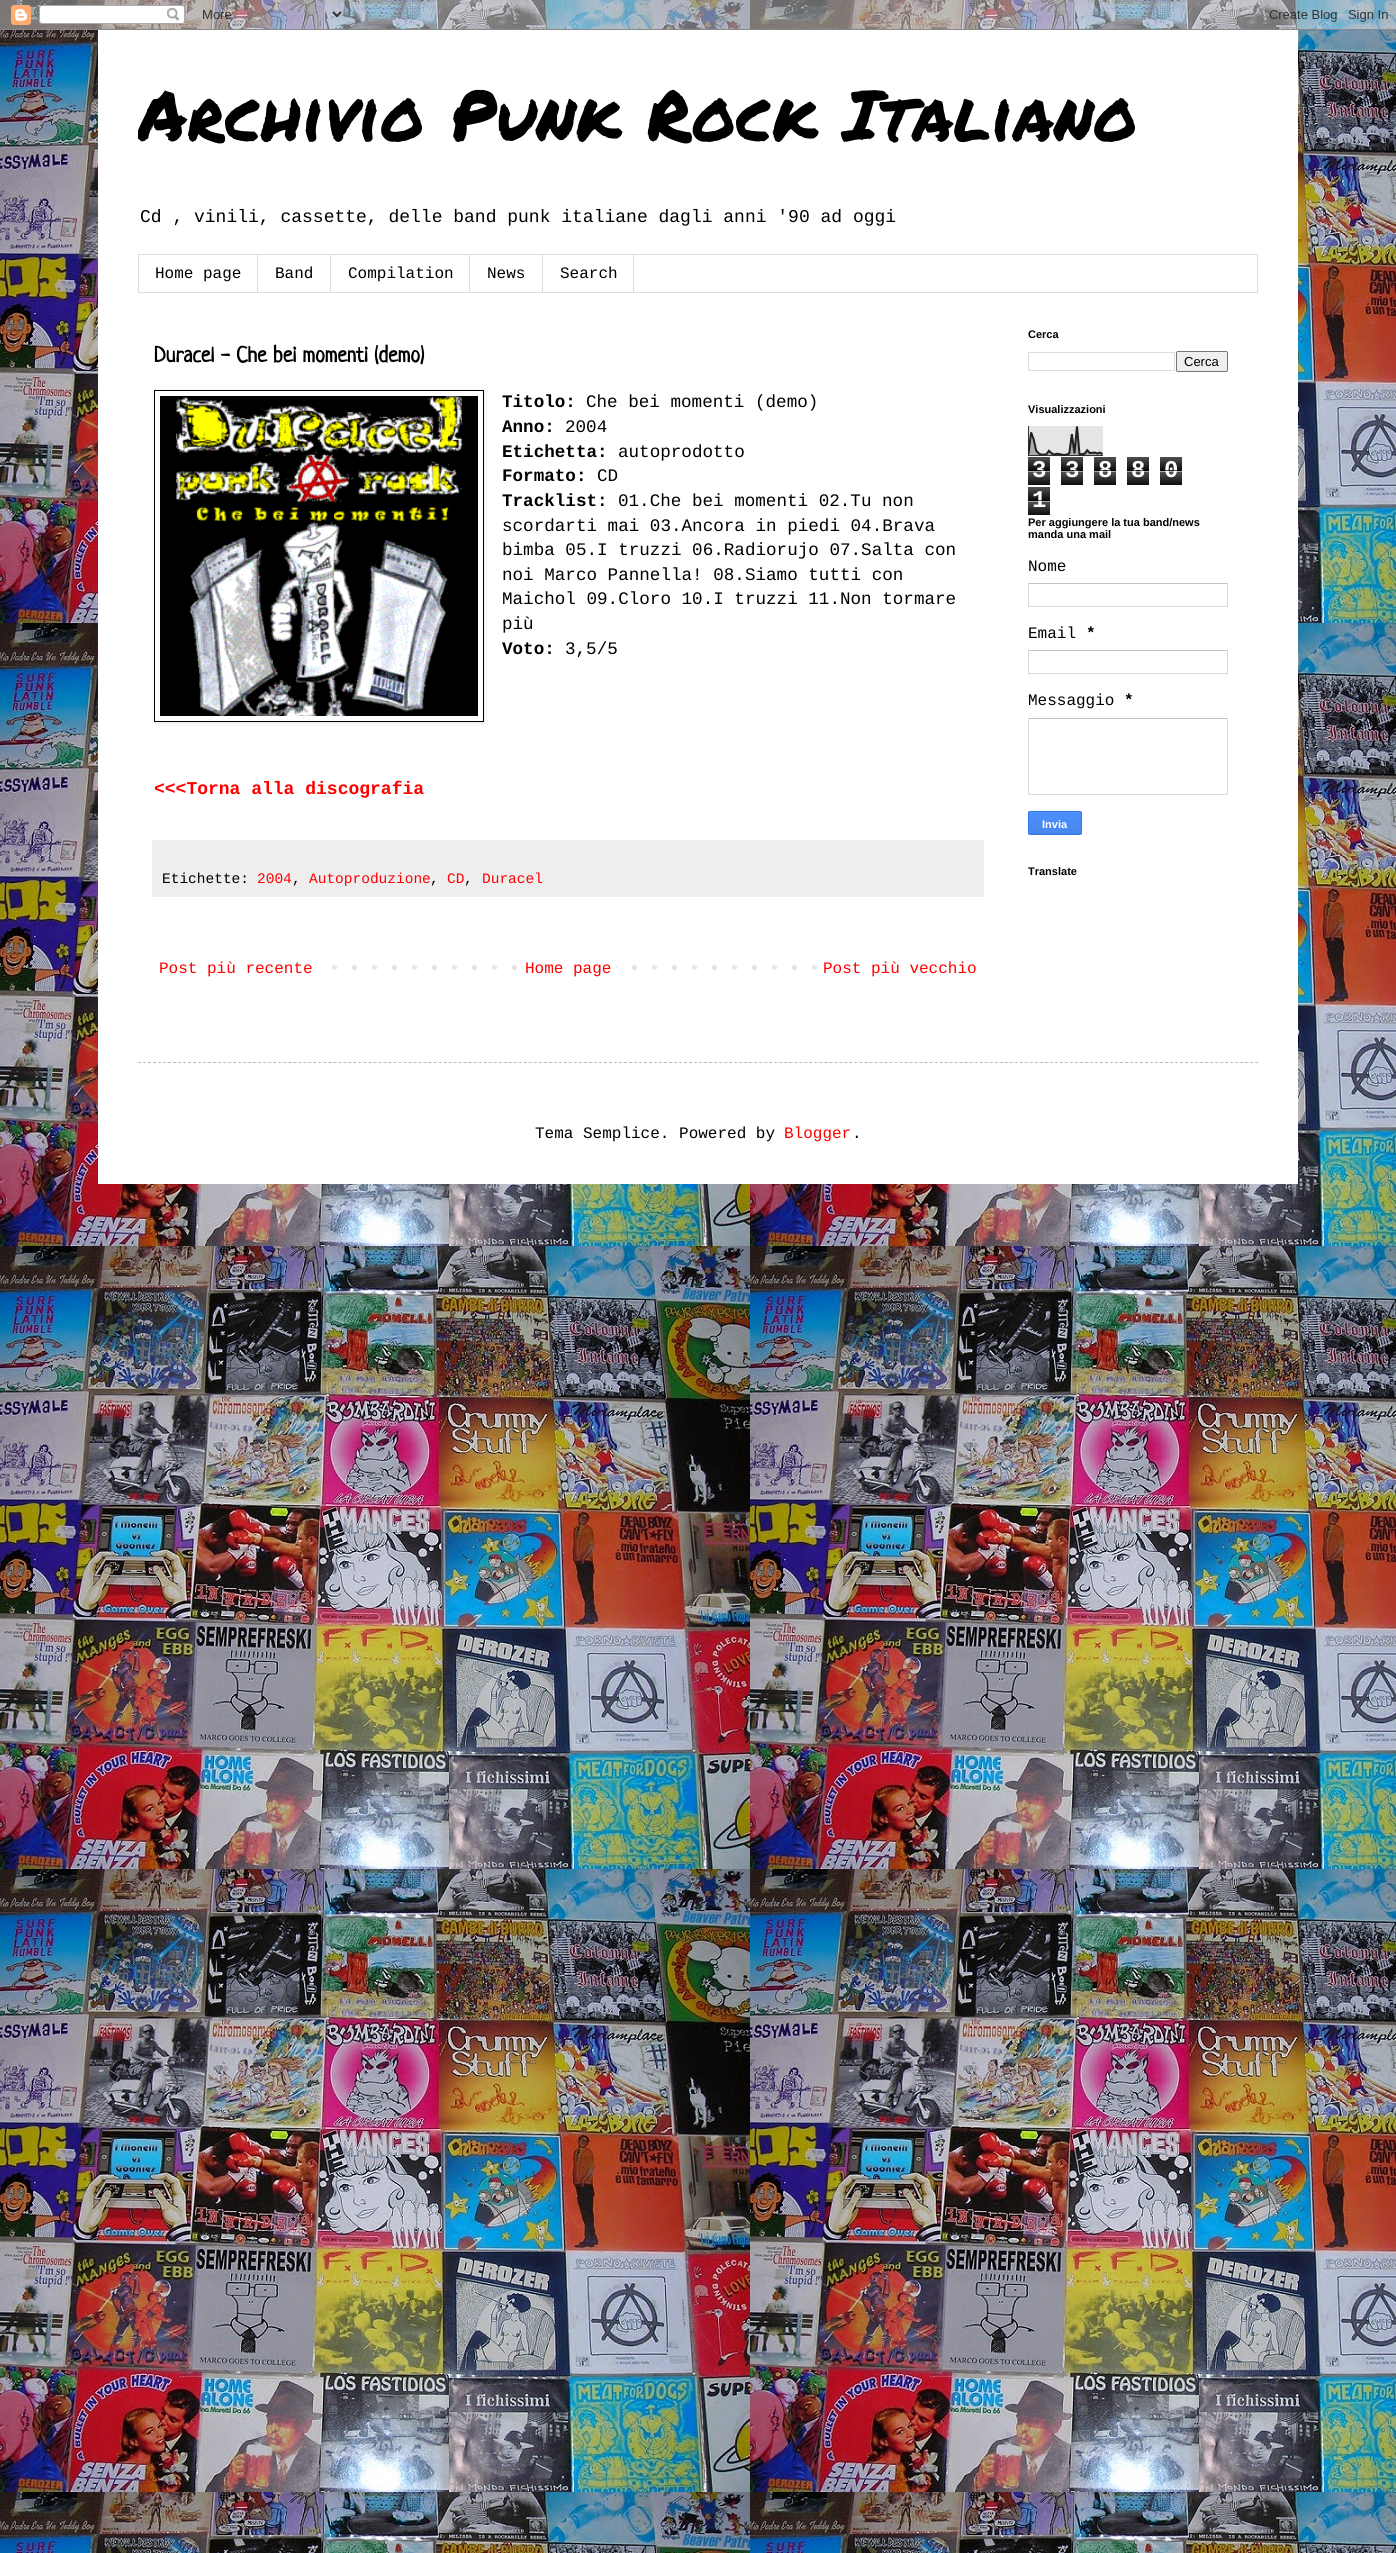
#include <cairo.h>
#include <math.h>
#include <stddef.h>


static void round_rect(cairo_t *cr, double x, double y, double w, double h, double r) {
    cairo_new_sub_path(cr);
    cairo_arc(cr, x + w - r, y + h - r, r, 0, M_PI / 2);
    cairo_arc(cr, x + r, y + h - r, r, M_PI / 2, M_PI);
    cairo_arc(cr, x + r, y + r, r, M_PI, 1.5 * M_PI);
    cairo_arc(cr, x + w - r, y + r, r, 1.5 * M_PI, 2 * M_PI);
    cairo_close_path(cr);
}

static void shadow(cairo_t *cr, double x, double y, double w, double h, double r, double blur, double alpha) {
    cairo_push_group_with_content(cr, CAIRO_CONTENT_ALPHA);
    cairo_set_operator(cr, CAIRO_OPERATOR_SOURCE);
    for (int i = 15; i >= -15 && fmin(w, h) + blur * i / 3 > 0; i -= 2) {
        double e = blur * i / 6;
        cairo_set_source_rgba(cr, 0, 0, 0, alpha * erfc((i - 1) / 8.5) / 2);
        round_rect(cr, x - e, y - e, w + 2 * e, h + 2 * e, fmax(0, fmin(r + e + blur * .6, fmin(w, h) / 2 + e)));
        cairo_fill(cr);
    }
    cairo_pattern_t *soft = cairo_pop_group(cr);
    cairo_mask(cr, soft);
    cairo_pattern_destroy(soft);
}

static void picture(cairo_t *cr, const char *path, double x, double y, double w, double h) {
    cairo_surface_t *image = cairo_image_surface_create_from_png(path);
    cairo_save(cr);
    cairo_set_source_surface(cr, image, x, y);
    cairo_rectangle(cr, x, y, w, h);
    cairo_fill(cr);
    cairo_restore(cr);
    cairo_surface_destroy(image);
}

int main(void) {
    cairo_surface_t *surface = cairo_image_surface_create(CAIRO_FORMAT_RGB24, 1396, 2553);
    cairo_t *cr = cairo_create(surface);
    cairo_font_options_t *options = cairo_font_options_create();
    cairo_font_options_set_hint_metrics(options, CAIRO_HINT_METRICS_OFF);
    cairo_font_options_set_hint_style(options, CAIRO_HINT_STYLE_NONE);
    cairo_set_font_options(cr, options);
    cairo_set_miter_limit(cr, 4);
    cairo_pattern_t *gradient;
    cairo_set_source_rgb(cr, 1, 1, 1);
    cairo_paint(cr);
    picture(cr, "img1.png", 0, 0, 1396, 2553);
    picture(cr, "img2.png", 0, 0, 1396, 30);
    cairo_set_source_rgb(cr, 1, 1, 1);
    cairo_rectangle(cr, 98, 30, 1200, 1154);
    cairo_fill(cr);
    cairo_save(cr);
    cairo_rectangle(cr, 138, 40, 1120, 215);
    cairo_clip(cr);
    cairo_select_font_face(cr, "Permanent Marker", CAIRO_FONT_SLANT_NORMAL, CAIRO_FONT_WEIGHT_NORMAL);
    cairo_set_font_size(cr, 70);
    cairo_set_source_rgb(cr, 0, 0, 0);
    cairo_move_to(cr, 138, 141);
    cairo_show_text(cr, "Archivio Punk Rock Italiano");
    cairo_restore(cr);
    cairo_select_font_face(cr, "Liberation Mono", CAIRO_FONT_SLANT_NORMAL, CAIRO_FONT_WEIGHT_NORMAL);
    cairo_set_font_size(cr, 18);
    cairo_set_source_rgb(cr, 0, 0, 0);
    cairo_move_to(cr, 140, 222);
    cairo_show_text(cr, "Cd , vinili, cassette, delle band punk italiane dagli anni '90 ad oggi");
    cairo_rectangle(cr, 138.5, 254.5, 1119, 38);
    cairo_set_source_rgb(cr, 0.867, 0.867, 0.867);
    cairo_set_line_width(cr, 1);
    cairo_stroke(cr);
    cairo_rectangle(cr, 257, 255, 1, 37);
    cairo_fill(cr);
    cairo_set_font_size(cr, 16);
    cairo_set_source_rgb(cr, 0, 0, 0);
    cairo_move_to(cr, 155, 278);
    cairo_show_text(cr, "Home page");
    cairo_set_source_rgb(cr, 0.867, 0.867, 0.867);
    cairo_rectangle(cr, 330, 255, 1, 37);
    cairo_fill(cr);
    cairo_set_source_rgb(cr, 0, 0, 0);
    cairo_move_to(cr, 275, 278);
    cairo_show_text(cr, "Band");
    cairo_set_source_rgb(cr, 0.867, 0.867, 0.867);
    cairo_rectangle(cr, 469, 255, 1, 37);
    cairo_fill(cr);
    cairo_set_source_rgb(cr, 0, 0, 0);
    cairo_move_to(cr, 348, 278);
    cairo_show_text(cr, "Compilation");
    cairo_set_source_rgb(cr, 0.867, 0.867, 0.867);
    cairo_rectangle(cr, 542, 255, 1, 37);
    cairo_fill(cr);
    cairo_set_source_rgb(cr, 0, 0, 0);
    cairo_move_to(cr, 487, 278);
    cairo_show_text(cr, "News");
    cairo_set_source_rgb(cr, 0.867, 0.867, 0.867);
    cairo_rectangle(cr, 633, 255, 1, 37);
    cairo_fill(cr);
    cairo_set_source_rgb(cr, 0, 0, 0);
    cairo_move_to(cr, 560, 278);
    cairo_show_text(cr, "Search");
    cairo_select_font_face(cr, "Neucha", CAIRO_FONT_SLANT_NORMAL, CAIRO_FONT_WEIGHT_BOLD);
    cairo_set_font_size(cr, 22);
    cairo_move_to(cr, 154, 362);
    cairo_show_text(cr, "Duracel - Che bei momenti (demo)");
    cairo_save(cr);
    cairo_set_fill_rule(cr, CAIRO_FILL_RULE_EVEN_ODD);
    cairo_new_path(cr);
    cairo_move_to(cr, 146, 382);
    cairo_line_to(cr, 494, 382);
    cairo_line_to(cr, 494, 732);
    cairo_line_to(cr, 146, 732);
    cairo_close_path(cr);
    cairo_move_to(cr, 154, 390);
    cairo_line_to(cr, 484, 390);
    cairo_line_to(cr, 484, 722);
    cairo_line_to(cr, 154, 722);
    cairo_close_path(cr);
    cairo_clip(cr);
    cairo_set_source_rgb(cr, 0, 0, 0);
    shadow(cr, 155, 391, 330, 332, 0, 2.5, 0.1);
    cairo_restore(cr);
    cairo_rectangle(cr, 154.5, 390.5, 329, 331);
    cairo_stroke(cr);
    picture(cr, "img3.png", 160, 396, 318, 320);
    cairo_select_font_face(cr, "Liberation Mono", CAIRO_FONT_SLANT_NORMAL, CAIRO_FONT_WEIGHT_BOLD);
    cairo_set_font_size(cr, 17.6);
    cairo_move_to(cr, 502, 407);
    cairo_show_text(cr, "Titolo:");
    cairo_select_font_face(cr, "Liberation Mono", CAIRO_FONT_SLANT_NORMAL, CAIRO_FONT_WEIGHT_NORMAL);
    cairo_move_to(cr, 586, 407);
    cairo_show_text(cr, "Che bei momenti (demo)");
    cairo_select_font_face(cr, "Liberation Mono", CAIRO_FONT_SLANT_NORMAL, CAIRO_FONT_WEIGHT_BOLD);
    cairo_move_to(cr, 502, 432);
    cairo_show_text(cr, "Anno:");
    cairo_select_font_face(cr, "Liberation Mono", CAIRO_FONT_SLANT_NORMAL, CAIRO_FONT_WEIGHT_NORMAL);
    cairo_move_to(cr, 565, 432);
    cairo_show_text(cr, "2004");
    cairo_select_font_face(cr, "Liberation Mono", CAIRO_FONT_SLANT_NORMAL, CAIRO_FONT_WEIGHT_BOLD);
    cairo_move_to(cr, 502, 457);
    cairo_show_text(cr, "Etichetta:");
    cairo_select_font_face(cr, "Liberation Mono", CAIRO_FONT_SLANT_NORMAL, CAIRO_FONT_WEIGHT_NORMAL);
    cairo_move_to(cr, 618, 457);
    cairo_show_text(cr, "autoprodotto");
    cairo_select_font_face(cr, "Liberation Mono", CAIRO_FONT_SLANT_NORMAL, CAIRO_FONT_WEIGHT_BOLD);
    cairo_move_to(cr, 502, 481);
    cairo_show_text(cr, "Formato:");
    cairo_select_font_face(cr, "Liberation Mono", CAIRO_FONT_SLANT_NORMAL, CAIRO_FONT_WEIGHT_NORMAL);
    cairo_move_to(cr, 597, 481);
    cairo_show_text(cr, "CD");
    cairo_select_font_face(cr, "Liberation Mono", CAIRO_FONT_SLANT_NORMAL, CAIRO_FONT_WEIGHT_BOLD);
    cairo_move_to(cr, 502, 506);
    cairo_show_text(cr, "Tracklist:");
    cairo_select_font_face(cr, "Liberation Mono", CAIRO_FONT_SLANT_NORMAL, CAIRO_FONT_WEIGHT_NORMAL);
    cairo_move_to(cr, 618, 506);
    cairo_show_text(cr, "01.Che bei momenti 02.Tu non");
    cairo_move_to(cr, 502, 531);
    cairo_show_text(cr, "scordarti mai 03.Ancora in piedi 04.Brava");
    cairo_move_to(cr, 502, 555);
    cairo_show_text(cr, "bimba 05.I truzzi 06.Radiorujo 07.Salta con");
    cairo_move_to(cr, 502, 580);
    cairo_show_text(cr, "noi Marco Pannella! 08.Siamo tutti con");
    cairo_move_to(cr, 502, 604);
    cairo_show_text(cr, "Maichol 09.Cloro 10.I truzzi 11.Non tormare");
    cairo_move_to(cr, 502, 629);
    cairo_show_text(cr, "più");
    cairo_select_font_face(cr, "Liberation Mono", CAIRO_FONT_SLANT_NORMAL, CAIRO_FONT_WEIGHT_BOLD);
    cairo_move_to(cr, 502, 654);
    cairo_show_text(cr, "Voto:");
    cairo_select_font_face(cr, "Liberation Mono", CAIRO_FONT_SLANT_NORMAL, CAIRO_FONT_WEIGHT_NORMAL);
    cairo_move_to(cr, 565, 654);
    cairo_show_text(cr, "3,5/5");
    cairo_select_font_face(cr, "Liberation Mono", CAIRO_FONT_SLANT_NORMAL, CAIRO_FONT_WEIGHT_BOLD);
    cairo_set_font_size(cr, 18);
    cairo_set_source_rgb(cr, 1, 0, 0);
    cairo_move_to(cr, 154, 794);
    cairo_show_text(cr, "<<<Torna alla discografia");
    cairo_set_source_rgb(cr, 0.933, 0.933, 0.933);
    cairo_rectangle(cr, 152, 840, 832, 57);
    cairo_fill(cr);
    cairo_select_font_face(cr, "Liberation Mono", CAIRO_FONT_SLANT_NORMAL, CAIRO_FONT_WEIGHT_NORMAL);
    cairo_set_font_size(cr, 14.5);
    cairo_set_source_rgb(cr, 0, 0, 0);
    cairo_move_to(cr, 162, 883);
    cairo_show_text(cr, "Etichette:");
    cairo_set_source_rgb(cr, 1, 0, 0);
    cairo_move_to(cr, 257, 883);
    cairo_show_text(cr, "2004");
    cairo_set_source_rgb(cr, 0, 0, 0);
    cairo_move_to(cr, 292, 883);
    cairo_show_text(cr, ",");
    cairo_set_source_rgb(cr, 1, 0, 0);
    cairo_move_to(cr, 309, 883);
    cairo_show_text(cr, "Autoproduzione");
    cairo_set_source_rgb(cr, 0, 0, 0);
    cairo_move_to(cr, 430, 883);
    cairo_show_text(cr, ",");
    cairo_set_source_rgb(cr, 1, 0, 0);
    cairo_move_to(cr, 447, 883);
    cairo_show_text(cr, "CD");
    cairo_set_source_rgb(cr, 0, 0, 0);
    cairo_move_to(cr, 464, 883);
    cairo_show_text(cr, ",");
    cairo_set_source_rgb(cr, 1, 0, 0);
    cairo_move_to(cr, 482, 883);
    cairo_show_text(cr, "Duracel");
    picture(cr, "img4.png", 332, 965, 485, 5);
    cairo_set_font_size(cr, 16);
    cairo_move_to(cr, 159, 973);
    cairo_show_text(cr, "Post più recente");
    cairo_set_source_rgb(cr, 1, 1, 1);
    cairo_rectangle(cr, 532, 965, 84, 5);
    cairo_fill(cr);
    cairo_set_source_rgb(cr, 1, 0, 0);
    cairo_move_to(cr, 525, 973);
    cairo_show_text(cr, "Home page");
    cairo_move_to(cr, 823, 973);
    cairo_show_text(cr, "Post più vecchio");
    cairo_select_font_face(cr, "Liberation Sans", CAIRO_FONT_SLANT_NORMAL, CAIRO_FONT_WEIGHT_BOLD);
    cairo_set_font_size(cr, 11);
    cairo_set_source_rgb(cr, 0, 0, 0);
    cairo_move_to(cr, 1028, 338);
    cairo_show_text(cr, "Cerca");
    cairo_rectangle(cr, 1028.5, 352.5, 146, 18);
    cairo_set_source_rgb(cr, 0.867, 0.867, 0.867);
    cairo_stroke(cr);
    cairo_set_source_rgb(cr, 0.937, 0.937, 0.937);
    round_rect(cr, 1176.5, 351.5, 51, 20, 1.5);
    cairo_fill_preserve(cr);
    cairo_set_source_rgb(cr, 0.463, 0.463, 0.463);
    cairo_stroke(cr);
    cairo_select_font_face(cr, "Liberation Sans", CAIRO_FONT_SLANT_NORMAL, CAIRO_FONT_WEIGHT_NORMAL);
    cairo_set_font_size(cr, 13);
    cairo_set_source_rgb(cr, 0, 0, 0);
    cairo_move_to(cr, 1184, 366);
    cairo_show_text(cr, "Cerca");
    cairo_select_font_face(cr, "Liberation Sans", CAIRO_FONT_SLANT_NORMAL, CAIRO_FONT_WEIGHT_BOLD);
    cairo_set_font_size(cr, 11);
    cairo_move_to(cr, 1028, 413);
    cairo_show_text(cr, "Visualizzazioni");
    picture(cr, "img5.png", 1028, 426, 75, 30);
    picture(cr, "img6.png", 1028, 457, 22, 28);
    cairo_select_font_face(cr, "Liberation Mono", CAIRO_FONT_SLANT_NORMAL, CAIRO_FONT_WEIGHT_BOLD);
    cairo_set_font_size(cr, 24);
    cairo_set_source_rgb(cr, 1, 1, 1);
    cairo_move_to(cr, 1032, 477);
    cairo_show_text(cr, "3");
    cairo_set_source_rgba(cr, 0, 0, 0, 0.65);
    cairo_rectangle(cr, 1028, 470, 22, 1);
    cairo_fill(cr);
    cairo_set_source_rgba(cr, 1, 1, 1, 0.65);
    cairo_rectangle(cr, 1028, 471, 22, 1);
    cairo_fill(cr);
    picture(cr, "img6.png", 1061, 457, 22, 28);
    cairo_set_source_rgb(cr, 1, 1, 1);
    cairo_move_to(cr, 1065, 477);
    cairo_show_text(cr, "3");
    cairo_set_source_rgba(cr, 0, 0, 0, 0.65);
    cairo_rectangle(cr, 1061, 470, 22, 1);
    cairo_fill(cr);
    cairo_set_source_rgba(cr, 1, 1, 1, 0.65);
    cairo_rectangle(cr, 1061, 471, 22, 1);
    cairo_fill(cr);
    picture(cr, "img6.png", 1094, 457, 22, 28);
    cairo_set_source_rgb(cr, 1, 1, 1);
    cairo_move_to(cr, 1098, 477);
    cairo_show_text(cr, "8");
    cairo_set_source_rgba(cr, 0, 0, 0, 0.65);
    cairo_rectangle(cr, 1094, 470, 22, 1);
    cairo_fill(cr);
    cairo_set_source_rgba(cr, 1, 1, 1, 0.65);
    cairo_rectangle(cr, 1094, 471, 22, 1);
    cairo_fill(cr);
    picture(cr, "img6.png", 1127, 457, 22, 28);
    cairo_set_source_rgb(cr, 1, 1, 1);
    cairo_move_to(cr, 1131, 477);
    cairo_show_text(cr, "8");
    cairo_set_source_rgba(cr, 0, 0, 0, 0.65);
    cairo_rectangle(cr, 1127, 470, 22, 1);
    cairo_fill(cr);
    cairo_set_source_rgba(cr, 1, 1, 1, 0.65);
    cairo_rectangle(cr, 1127, 471, 22, 1);
    cairo_fill(cr);
    picture(cr, "img6.png", 1160, 457, 22, 28);
    cairo_set_source_rgb(cr, 1, 1, 1);
    cairo_move_to(cr, 1164, 477);
    cairo_show_text(cr, "0");
    cairo_set_source_rgba(cr, 0, 0, 0, 0.65);
    cairo_rectangle(cr, 1160, 470, 22, 1);
    cairo_fill(cr);
    cairo_set_source_rgba(cr, 1, 1, 1, 0.65);
    cairo_rectangle(cr, 1160, 471, 22, 1);
    cairo_fill(cr);
    picture(cr, "img6.png", 1028, 487, 22, 28);
    cairo_set_source_rgb(cr, 1, 1, 1);
    cairo_move_to(cr, 1032, 507);
    cairo_show_text(cr, "1");
    cairo_set_source_rgba(cr, 0, 0, 0, 0.65);
    cairo_rectangle(cr, 1028, 500, 22, 1);
    cairo_fill(cr);
    cairo_set_source_rgba(cr, 1, 1, 1, 0.65);
    cairo_rectangle(cr, 1028, 501, 22, 1);
    cairo_fill(cr);
    cairo_select_font_face(cr, "Liberation Sans", CAIRO_FONT_SLANT_NORMAL, CAIRO_FONT_WEIGHT_BOLD);
    cairo_set_font_size(cr, 11);
    cairo_set_source_rgb(cr, 0, 0, 0);
    cairo_move_to(cr, 1028, 526);
    cairo_show_text(cr, "Per aggiungere la tua band/news");
    cairo_move_to(cr, 1028, 538);
    cairo_show_text(cr, "manda una mail");
    cairo_select_font_face(cr, "Liberation Mono", CAIRO_FONT_SLANT_NORMAL, CAIRO_FONT_WEIGHT_NORMAL);
    cairo_set_font_size(cr, 16);
    cairo_move_to(cr, 1028, 571);
    cairo_show_text(cr, "Nome");
    cairo_set_source_rgb(cr, 0.753, 0.753, 0.753);
    cairo_rectangle(cr, 1028, 583, 200, 1);
    cairo_fill(cr);
    cairo_set_source_rgb(cr, 0.851, 0.851, 0.851);
    cairo_rectangle(cr, 1227, 583, 1, 24);
    cairo_fill(cr);
    cairo_rectangle(cr, 1028, 606, 200, 1);
    cairo_fill(cr);
    cairo_rectangle(cr, 1028, 583, 1, 24);
    cairo_fill(cr);
    cairo_set_source_rgb(cr, 0, 0, 0);
    cairo_move_to(cr, 1028, 638);
    cairo_show_text(cr, "Email");
    cairo_select_font_face(cr, "Liberation Mono", CAIRO_FONT_SLANT_NORMAL, CAIRO_FONT_WEIGHT_BOLD);
    cairo_move_to(cr, 1086, 638);
    cairo_show_text(cr, "*");
    cairo_set_source_rgb(cr, 0.753, 0.753, 0.753);
    cairo_rectangle(cr, 1028, 650, 200, 1);
    cairo_fill(cr);
    cairo_set_source_rgb(cr, 0.851, 0.851, 0.851);
    cairo_rectangle(cr, 1227, 650, 1, 24);
    cairo_fill(cr);
    cairo_rectangle(cr, 1028, 673, 200, 1);
    cairo_fill(cr);
    cairo_rectangle(cr, 1028, 650, 1, 24);
    cairo_fill(cr);
    cairo_select_font_face(cr, "Liberation Mono", CAIRO_FONT_SLANT_NORMAL, CAIRO_FONT_WEIGHT_NORMAL);
    cairo_set_source_rgb(cr, 0, 0, 0);
    cairo_move_to(cr, 1028, 705);
    cairo_show_text(cr, "Messaggio");
    cairo_select_font_face(cr, "Liberation Mono", CAIRO_FONT_SLANT_NORMAL, CAIRO_FONT_WEIGHT_BOLD);
    cairo_move_to(cr, 1124, 705);
    cairo_show_text(cr, "*");
    cairo_set_source_rgb(cr, 0.753, 0.753, 0.753);
    cairo_rectangle(cr, 1028, 718, 200, 1);
    cairo_fill(cr);
    cairo_set_source_rgb(cr, 0.851, 0.851, 0.851);
    cairo_rectangle(cr, 1227, 718, 1, 77);
    cairo_fill(cr);
    cairo_rectangle(cr, 1028, 794, 200, 1);
    cairo_fill(cr);
    cairo_rectangle(cr, 1028, 718, 1, 77);
    cairo_fill(cr);
    cairo_save(cr);
    round_rect(cr, 1028, 811, 54, 24, 2);
    cairo_clip(cr);
    gradient = cairo_pattern_create_linear(1055, 812, 1055, 834);
    cairo_pattern_add_color_stop_rgba(gradient, 0, 0.302, 0.565, 0.996, 1);
    cairo_pattern_add_color_stop_rgba(gradient, 1, 0.278, 0.529, 0.929, 1);
    cairo_set_source(cr, gradient);
    cairo_pattern_destroy(gradient);
    cairo_rectangle(cr, 1028, 812, 54, 22);
    cairo_fill(cr);
    cairo_restore(cr);
    round_rect(cr, 1028.5, 811.5, 53, 23, 1.5);
    cairo_set_source_rgb(cr, 0.188, 0.475, 0.929);
    cairo_stroke(cr);
    cairo_select_font_face(cr, "Liberation Sans", CAIRO_FONT_SLANT_NORMAL, CAIRO_FONT_WEIGHT_BOLD);
    cairo_set_font_size(cr, 11);
    cairo_set_source_rgb(cr, 1, 1, 1);
    cairo_move_to(cr, 1042, 828);
    cairo_show_text(cr, "Invia");
    cairo_set_source_rgb(cr, 0, 0, 0);
    cairo_move_to(cr, 1028, 875);
    cairo_show_text(cr, "Translate");
    cairo_new_path(cr);
    cairo_move_to(cr, 138, 1062.5);
    cairo_line_to(cr, 1258, 1062.5);
    cairo_set_source_rgb(cr, 0.733, 0.733, 0.733);
    cairo_set_dash(cr, (double[]){3, 2.01}, 2, 0);
    cairo_stroke(cr);
    cairo_select_font_face(cr, "Liberation Mono", CAIRO_FONT_SLANT_NORMAL, CAIRO_FONT_WEIGHT_NORMAL);
    cairo_set_font_size(cr, 16);
    cairo_set_source_rgb(cr, 0, 0, 0);
    cairo_move_to(cr, 535, 1138);
    cairo_show_text(cr, "Tema Semplice. Powered by");
    cairo_set_source_rgb(cr, 1, 0, 0);
    cairo_move_to(cr, 784, 1138);
    cairo_show_text(cr, "Blogger");
    cairo_set_source_rgb(cr, 0, 0, 0);
    cairo_move_to(cr, 852, 1138);
    cairo_show_text(cr, ".");
    cairo_surface_write_to_png(surface, "page.png");
    cairo_font_options_destroy(options);
    cairo_destroy(cr);
    cairo_surface_destroy(surface);
    return 0;
}
